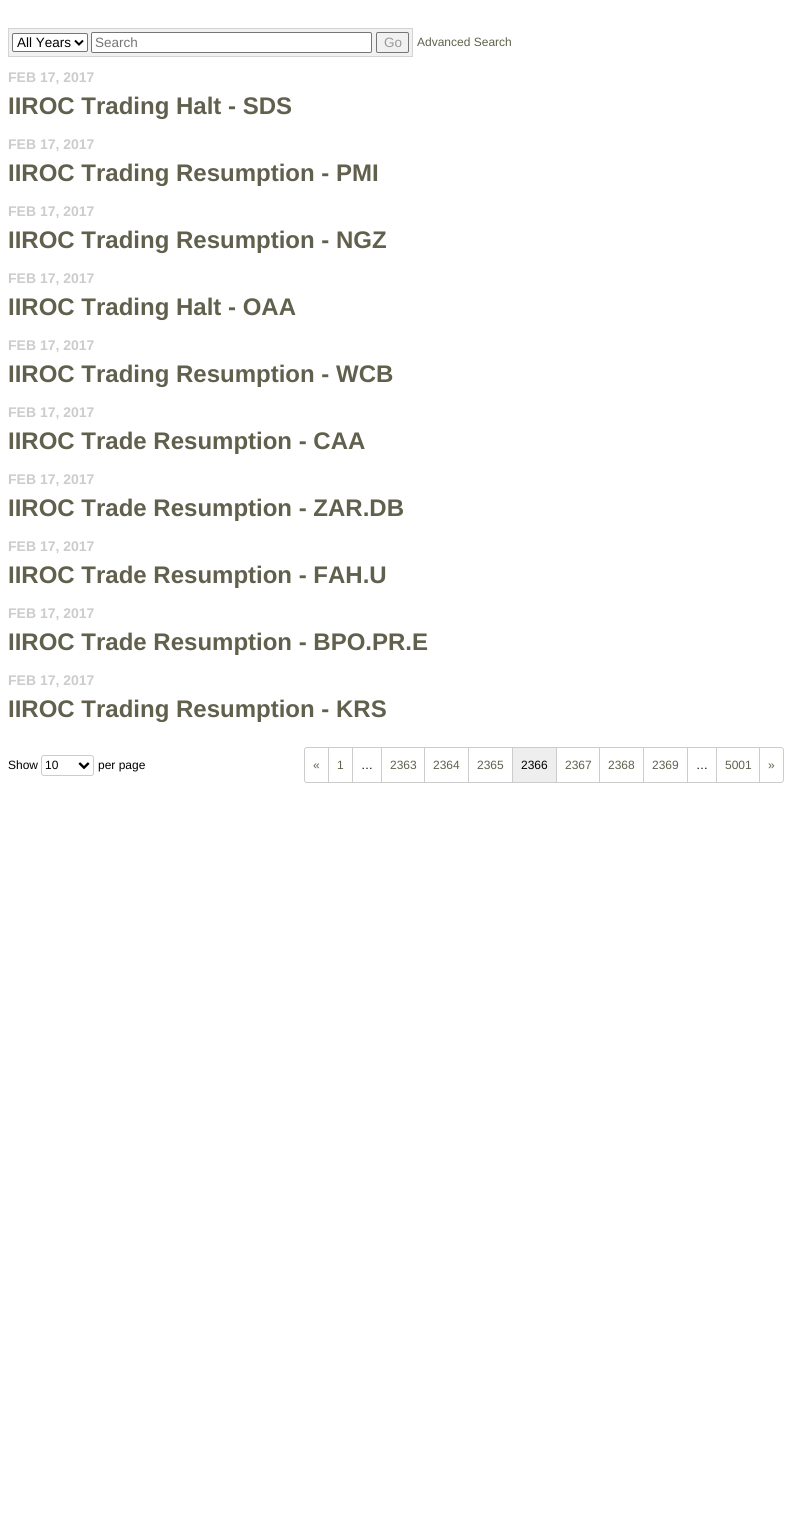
#include <cairo.h>
#include <math.h>
#include <stddef.h>


static void round_rect(cairo_t *cr, double x, double y, double w, double h, double r) {
    cairo_new_sub_path(cr);
    cairo_arc(cr, x + w - r, y + h - r, r, 0, M_PI / 2);
    cairo_arc(cr, x + r, y + h - r, r, M_PI / 2, M_PI);
    cairo_arc(cr, x + r, y + r, r, M_PI, 1.5 * M_PI);
    cairo_arc(cr, x + w - r, y + r, r, 1.5 * M_PI, 2 * M_PI);
    cairo_close_path(cr);
}

static void picture(cairo_t *cr, const char *path, double x, double y, double w, double h) {
    cairo_surface_t *image = cairo_image_surface_create_from_png(path);
    cairo_save(cr);
    cairo_set_source_surface(cr, image, x, y);
    cairo_rectangle(cr, x, y, w, h);
    cairo_fill(cr);
    cairo_restore(cr);
    cairo_surface_destroy(image);
}

int main(void) {
    cairo_surface_t *surface = cairo_image_surface_create(CAIRO_FORMAT_RGB24, 792, 1539);
    cairo_t *cr = cairo_create(surface);
    cairo_font_options_t *options = cairo_font_options_create();
    cairo_font_options_set_hint_metrics(options, CAIRO_HINT_METRICS_OFF);
    cairo_font_options_set_hint_style(options, CAIRO_HINT_STYLE_NONE);
    cairo_set_font_options(cr, options);
    cairo_set_miter_limit(cr, 4);
    cairo_set_source_rgb(cr, 1, 1, 1);
    cairo_paint(cr);
    cairo_set_source_rgb(cr, 0.945, 0.945, 0.945);
    cairo_rectangle(cr, 8.5, 28.5, 404, 28);
    cairo_fill_preserve(cr);
    cairo_set_source_rgb(cr, 0.827, 0.827, 0.827);
    cairo_set_line_width(cr, 1);
    cairo_stroke(cr);
    cairo_set_source_rgb(cr, 1, 1, 1);
    round_rect(cr, 12.5, 33.5, 75, 18, 1.5);
    cairo_fill_preserve(cr);
    cairo_set_source_rgb(cr, 0.463, 0.463, 0.463);
    cairo_stroke(cr);
    cairo_new_path(cr);
    cairo_move_to(cr, 75, 40.5);
    cairo_line_to(cr, 79, 44.5);
    cairo_line_to(cr, 83, 40.5);
    cairo_set_source_rgb(cr, 0, 0, 0);
    cairo_set_line_width(cr, 2);
    cairo_stroke(cr);
    cairo_select_font_face(cr, "Liberation Sans", CAIRO_FONT_SLANT_NORMAL, CAIRO_FONT_WEIGHT_NORMAL);
    cairo_set_font_size(cr, 13.5);
    cairo_move_to(cr, 17, 47);
    cairo_show_text(cr, "All Years");
    cairo_set_source_rgb(cr, 1, 1, 1);
    round_rect(cr, 91.5, 32.5, 280, 20, 1.5);
    cairo_fill_preserve(cr);
    cairo_set_source_rgb(cr, 0.463, 0.463, 0.463);
    cairo_set_line_width(cr, 1);
    cairo_stroke(cr);
    cairo_set_source_rgb(cr, 0.459, 0.459, 0.459);
    cairo_move_to(cr, 95, 47);
    cairo_show_text(cr, "Search");
    round_rect(cr, 376.5, 32.5, 32, 20, 1.5);
    cairo_set_source_rgb(cr, 0.463, 0.463, 0.463);
    cairo_stroke(cr);
    cairo_set_source_rgb(cr, 0.6, 0.6, 0.6);
    cairo_move_to(cr, 384, 47);
    cairo_show_text(cr, "Go");
    cairo_set_font_size(cr, 12);
    cairo_set_source_rgb(cr, 0.376, 0.376, 0.302);
    cairo_move_to(cr, 417, 46);
    cairo_show_text(cr, "Advanced Search");
    cairo_select_font_face(cr, "Liberation Sans", CAIRO_FONT_SLANT_NORMAL, CAIRO_FONT_WEIGHT_BOLD);
    cairo_set_font_size(cr, 14);
    cairo_set_source_rgb(cr, 0.8, 0.8, 0.8);
    cairo_move_to(cr, 8, 82);
    cairo_show_text(cr, "FEB 17, 2017");
    cairo_set_font_size(cr, 24);
    cairo_set_source_rgb(cr, 0.376, 0.376, 0.302);
    cairo_move_to(cr, 8, 114);
    cairo_show_text(cr, "IIROC Trading Halt - SDS");
    cairo_set_font_size(cr, 14);
    cairo_set_source_rgb(cr, 0.8, 0.8, 0.8);
    cairo_move_to(cr, 8, 149);
    cairo_show_text(cr, "FEB 17, 2017");
    cairo_set_font_size(cr, 24);
    cairo_set_source_rgb(cr, 0.376, 0.376, 0.302);
    cairo_move_to(cr, 8, 181);
    cairo_show_text(cr, "IIROC Trading Resumption - PMI");
    cairo_set_font_size(cr, 14);
    cairo_set_source_rgb(cr, 0.8, 0.8, 0.8);
    cairo_move_to(cr, 8, 216);
    cairo_show_text(cr, "FEB 17, 2017");
    cairo_set_font_size(cr, 24);
    cairo_set_source_rgb(cr, 0.376, 0.376, 0.302);
    cairo_move_to(cr, 8, 248);
    cairo_show_text(cr, "IIROC Trading Resumption - NGZ");
    cairo_set_font_size(cr, 14);
    cairo_set_source_rgb(cr, 0.8, 0.8, 0.8);
    cairo_move_to(cr, 8, 283);
    cairo_show_text(cr, "FEB 17, 2017");
    cairo_set_font_size(cr, 24);
    cairo_set_source_rgb(cr, 0.376, 0.376, 0.302);
    cairo_move_to(cr, 8, 315);
    cairo_show_text(cr, "IIROC Trading Halt - OAA");
    cairo_set_font_size(cr, 14);
    cairo_set_source_rgb(cr, 0.8, 0.8, 0.8);
    cairo_move_to(cr, 8, 350);
    cairo_show_text(cr, "FEB 17, 2017");
    cairo_set_font_size(cr, 24);
    cairo_set_source_rgb(cr, 0.376, 0.376, 0.302);
    cairo_move_to(cr, 8, 382);
    cairo_show_text(cr, "IIROC Trading Resumption - WCB");
    cairo_set_font_size(cr, 14);
    cairo_set_source_rgb(cr, 0.8, 0.8, 0.8);
    cairo_move_to(cr, 8, 417);
    cairo_show_text(cr, "FEB 17, 2017");
    cairo_set_font_size(cr, 24);
    cairo_set_source_rgb(cr, 0.376, 0.376, 0.302);
    cairo_move_to(cr, 8, 449);
    cairo_show_text(cr, "IIROC Trade Resumption - CAA");
    cairo_set_font_size(cr, 14);
    cairo_set_source_rgb(cr, 0.8, 0.8, 0.8);
    cairo_move_to(cr, 8, 484);
    cairo_show_text(cr, "FEB 17, 2017");
    cairo_set_font_size(cr, 24);
    cairo_set_source_rgb(cr, 0.376, 0.376, 0.302);
    cairo_move_to(cr, 8, 516);
    cairo_show_text(cr, "IIROC Trade Resumption - ZAR.DB");
    cairo_set_font_size(cr, 14);
    cairo_set_source_rgb(cr, 0.8, 0.8, 0.8);
    cairo_move_to(cr, 8, 551);
    cairo_show_text(cr, "FEB 17, 2017");
    cairo_set_font_size(cr, 24);
    cairo_set_source_rgb(cr, 0.376, 0.376, 0.302);
    cairo_move_to(cr, 8, 583);
    cairo_show_text(cr, "IIROC Trade Resumption - FAH.U");
    cairo_set_font_size(cr, 14);
    cairo_set_source_rgb(cr, 0.8, 0.8, 0.8);
    cairo_move_to(cr, 8, 618);
    cairo_show_text(cr, "FEB 17, 2017");
    cairo_set_font_size(cr, 24);
    cairo_set_source_rgb(cr, 0.376, 0.376, 0.302);
    cairo_move_to(cr, 8, 650);
    cairo_show_text(cr, "IIROC Trade Resumption - BPO.PR.E");
    cairo_set_font_size(cr, 14);
    cairo_set_source_rgb(cr, 0.8, 0.8, 0.8);
    cairo_move_to(cr, 8, 685);
    cairo_show_text(cr, "FEB 17, 2017");
    cairo_set_font_size(cr, 24);
    cairo_set_source_rgb(cr, 0.376, 0.376, 0.302);
    cairo_move_to(cr, 8, 717);
    cairo_show_text(cr, "IIROC Trading Resumption - KRS");
    cairo_select_font_face(cr, "Liberation Sans", CAIRO_FONT_SLANT_NORMAL, CAIRO_FONT_WEIGHT_NORMAL);
    cairo_set_font_size(cr, 12);
    cairo_set_source_rgb(cr, 0, 0, 0);
    cairo_move_to(cr, 8, 769);
    cairo_show_text(cr, "Show");
    round_rect(cr, 41.5, 755.5, 52, 20, 2.5);
    cairo_set_source_rgb(cr, 0.8, 0.8, 0.8);
    cairo_stroke(cr);
    cairo_set_source_rgb(cr, 0, 0, 0);
    cairo_move_to(cr, 45, 769);
    cairo_show_text(cr, "10");
    picture(cr, "img1.png", 78, 762, 12, 8);
    cairo_move_to(cr, 98, 769);
    cairo_show_text(cr, "per page");
    cairo_new_path(cr);
    cairo_move_to(cr, 307, 747.5);
    cairo_line_to(cr, 328.5, 747.5);
    cairo_line_to(cr, 328.5, 782.5);
    cairo_line_to(cr, 307, 782.5);
    cairo_curve_to(cr, 305.5, 782.5, 304.5, 781.5, 304.5, 780);
    cairo_line_to(cr, 304.5, 750);
    cairo_curve_to(cr, 304.5, 748.5, 305.5, 747.5, 307, 747.5);
    cairo_close_path(cr);
    cairo_set_source_rgb(cr, 0.8, 0.8, 0.8);
    cairo_stroke(cr);
    cairo_set_source_rgb(cr, 0.376, 0.376, 0.302);
    cairo_move_to(cr, 313, 769);
    cairo_show_text(cr, "«");
    cairo_set_source_rgb(cr, 0.8, 0.8, 0.8);
    cairo_rectangle(cr, 329, 747, 431, 1);
    cairo_fill(cr);
    cairo_rectangle(cr, 352, 747, 1, 36);
    cairo_fill(cr);
    cairo_rectangle(cr, 329, 782, 24, 1);
    cairo_fill(cr);
    cairo_set_source_rgb(cr, 0.376, 0.376, 0.302);
    cairo_move_to(cr, 337, 769);
    cairo_show_text(cr, "1");
    cairo_set_source_rgb(cr, 0.8, 0.8, 0.8);
    cairo_rectangle(cr, 381, 747, 1, 36);
    cairo_fill(cr);
    cairo_rectangle(cr, 353, 782, 29, 1);
    cairo_fill(cr);
    cairo_set_source_rgb(cr, 0, 0, 0);
    cairo_move_to(cr, 361, 769);
    cairo_show_text(cr, "…");
    cairo_set_source_rgb(cr, 0.8, 0.8, 0.8);
    cairo_rectangle(cr, 424, 747, 1, 36);
    cairo_fill(cr);
    cairo_rectangle(cr, 382, 782, 43, 1);
    cairo_fill(cr);
    cairo_set_source_rgb(cr, 0.376, 0.376, 0.302);
    cairo_move_to(cr, 390, 769);
    cairo_show_text(cr, "2363");
    cairo_set_source_rgb(cr, 0.8, 0.8, 0.8);
    cairo_rectangle(cr, 468, 747, 1, 36);
    cairo_fill(cr);
    cairo_rectangle(cr, 425, 782, 44, 1);
    cairo_fill(cr);
    cairo_set_source_rgb(cr, 0.376, 0.376, 0.302);
    cairo_move_to(cr, 433, 769);
    cairo_show_text(cr, "2364");
    cairo_set_source_rgb(cr, 0.8, 0.8, 0.8);
    cairo_rectangle(cr, 512, 747, 1, 36);
    cairo_fill(cr);
    cairo_rectangle(cr, 469, 782, 44, 1);
    cairo_fill(cr);
    cairo_set_source_rgb(cr, 0.376, 0.376, 0.302);
    cairo_move_to(cr, 477, 769);
    cairo_show_text(cr, "2365");
    cairo_set_source_rgb(cr, 0.933, 0.933, 0.933);
    cairo_rectangle(cr, 513, 748, 43, 34);
    cairo_fill(cr);
    cairo_set_source_rgb(cr, 0.8, 0.8, 0.8);
    cairo_rectangle(cr, 556, 747, 1, 36);
    cairo_fill(cr);
    cairo_rectangle(cr, 513, 782, 44, 1);
    cairo_fill(cr);
    cairo_set_source_rgb(cr, 0, 0, 0);
    cairo_move_to(cr, 521, 769);
    cairo_show_text(cr, "2366");
    cairo_set_source_rgb(cr, 0.8, 0.8, 0.8);
    cairo_rectangle(cr, 599, 747, 1, 36);
    cairo_fill(cr);
    cairo_rectangle(cr, 557, 782, 43, 1);
    cairo_fill(cr);
    cairo_set_source_rgb(cr, 0.376, 0.376, 0.302);
    cairo_move_to(cr, 565, 769);
    cairo_show_text(cr, "2367");
    cairo_set_source_rgb(cr, 0.8, 0.8, 0.8);
    cairo_rectangle(cr, 643, 747, 1, 36);
    cairo_fill(cr);
    cairo_rectangle(cr, 600, 782, 44, 1);
    cairo_fill(cr);
    cairo_set_source_rgb(cr, 0.376, 0.376, 0.302);
    cairo_move_to(cr, 608, 769);
    cairo_show_text(cr, "2368");
    cairo_set_source_rgb(cr, 0.8, 0.8, 0.8);
    cairo_rectangle(cr, 687, 747, 1, 36);
    cairo_fill(cr);
    cairo_rectangle(cr, 644, 782, 44, 1);
    cairo_fill(cr);
    cairo_set_source_rgb(cr, 0.376, 0.376, 0.302);
    cairo_move_to(cr, 652, 769);
    cairo_show_text(cr, "2369");
    cairo_set_source_rgb(cr, 0.8, 0.8, 0.8);
    cairo_rectangle(cr, 716, 747, 1, 36);
    cairo_fill(cr);
    cairo_rectangle(cr, 688, 782, 29, 1);
    cairo_fill(cr);
    cairo_set_source_rgb(cr, 0, 0, 0);
    cairo_move_to(cr, 696, 769);
    cairo_show_text(cr, "…");
    cairo_set_source_rgb(cr, 0.8, 0.8, 0.8);
    cairo_rectangle(cr, 759, 747, 1, 36);
    cairo_fill(cr);
    cairo_rectangle(cr, 717, 782, 43, 1);
    cairo_fill(cr);
    cairo_set_source_rgb(cr, 0.376, 0.376, 0.302);
    cairo_move_to(cr, 725, 769);
    cairo_show_text(cr, "5001");
    cairo_set_source_rgb(cr, 0.8, 0.8, 0.8);
    cairo_set_fill_rule(cr, CAIRO_FILL_RULE_EVEN_ODD);
    cairo_new_path(cr);
    cairo_move_to(cr, 760, 747);
    cairo_line_to(cr, 781, 747);
    cairo_curve_to(cr, 782.5, 747, 784, 748.5, 784, 750);
    cairo_line_to(cr, 784, 780);
    cairo_curve_to(cr, 784, 781.5, 782.5, 783, 781, 783);
    cairo_line_to(cr, 760, 783);
    cairo_close_path(cr);
    cairo_move_to(cr, 760, 748);
    cairo_line_to(cr, 781, 748);
    cairo_curve_to(cr, 782, 748, 783, 749, 783, 750);
    cairo_line_to(cr, 783, 780);
    cairo_curve_to(cr, 783, 781, 782, 782, 781, 782);
    cairo_line_to(cr, 760, 782);
    cairo_close_path(cr);
    cairo_fill(cr);
    cairo_set_source_rgb(cr, 0.376, 0.376, 0.302);
    cairo_move_to(cr, 768, 769);
    cairo_show_text(cr, "»");
    cairo_surface_write_to_png(surface, "page.png");
    cairo_font_options_destroy(options);
    cairo_destroy(cr);
    cairo_surface_destroy(surface);
    return 0;
}
